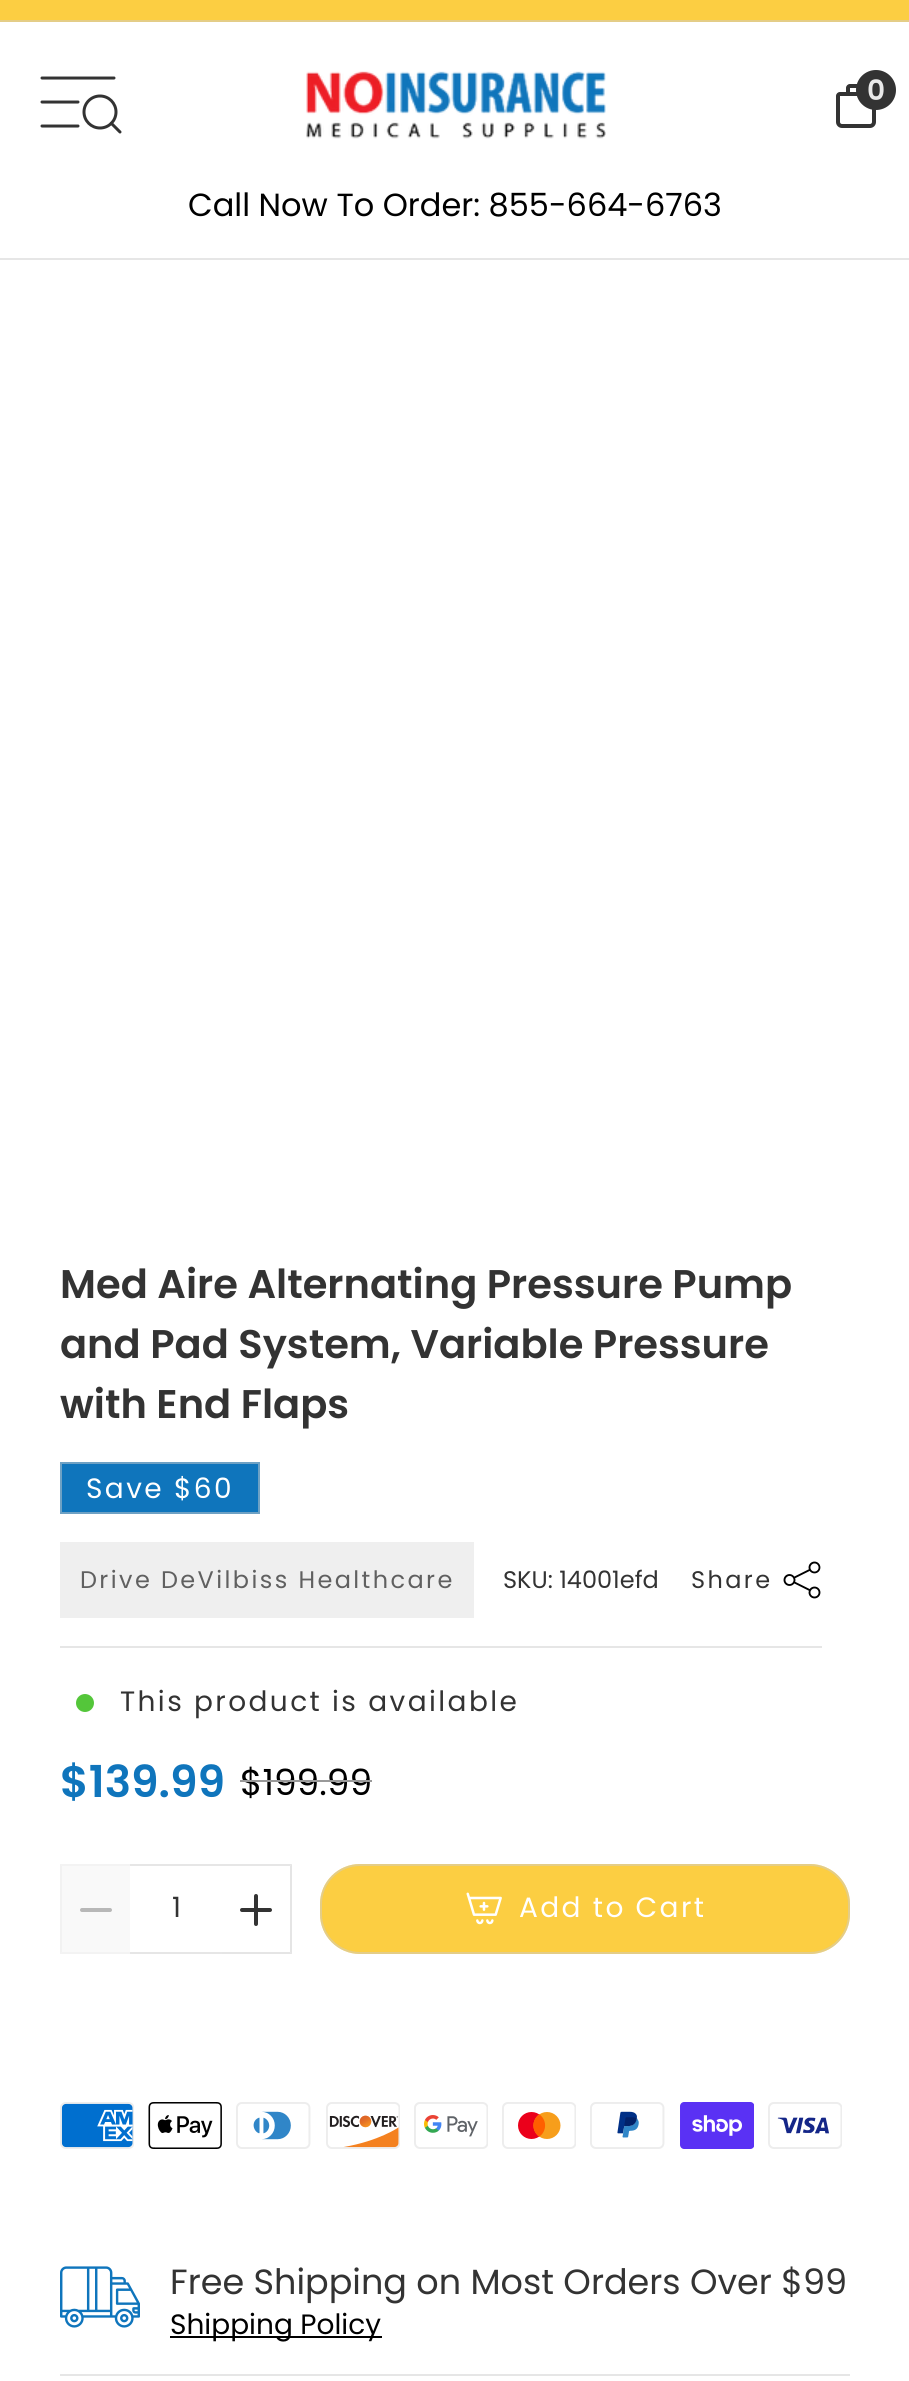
#include <cairo.h>
#include <math.h>
#include <stddef.h>


static void spaced_text(cairo_t *cr, double x, double y, const char *s, double letter, double word) {
    cairo_move_to(cr, x, y);
    while (*s) {
        char ch[5] = {0};
        int n = 0;
        do ch[n++] = *s++; while ((*s & 0xC0) == 0x80);
        cairo_show_text(cr, ch);
        cairo_rel_move_to(cr, letter + word * (*ch == ' '), 0);
    }
}

static void round_rect(cairo_t *cr, double x, double y, double w, double h, double r) {
    cairo_new_sub_path(cr);
    cairo_arc(cr, x + w - r, y + h - r, r, 0, M_PI / 2);
    cairo_arc(cr, x + r, y + h - r, r, M_PI / 2, M_PI);
    cairo_arc(cr, x + r, y + r, r, M_PI, 1.5 * M_PI);
    cairo_arc(cr, x + w - r, y + r, r, 1.5 * M_PI, 2 * M_PI);
    cairo_close_path(cr);
}

static void picture(cairo_t *cr, const char *path, double x, double y, double w, double h) {
    cairo_surface_t *image = cairo_image_surface_create_from_png(path);
    cairo_save(cr);
    cairo_set_source_surface(cr, image, x, y);
    cairo_rectangle(cr, x, y, w, h);
    cairo_fill(cr);
    cairo_restore(cr);
    cairo_surface_destroy(image);
}

int main(void) {
    cairo_surface_t *surface = cairo_image_surface_create(CAIRO_FORMAT_RGB24, 909, 2381);
    cairo_t *cr = cairo_create(surface);
    cairo_font_options_t *options = cairo_font_options_create();
    cairo_font_options_set_hint_metrics(options, CAIRO_HINT_METRICS_OFF);
    cairo_font_options_set_hint_style(options, CAIRO_HINT_STYLE_NONE);
    cairo_set_font_options(cr, options);
    cairo_set_miter_limit(cr, 4);
    cairo_set_source_rgb(cr, 1, 1, 1);
    cairo_paint(cr);
    cairo_set_source_rgb(cr, 0.988, 0.808, 0.259);
    cairo_rectangle(cr, 0, 0, 909, 20);
    cairo_fill(cr);
    cairo_set_source_rgb(cr, 0.894, 0.804, 0.529);
    cairo_rectangle(cr, 0, 20, 909, 2);
    cairo_fill(cr);
    cairo_set_source_rgb(cr, 0.902, 0.902, 0.902);
    cairo_rectangle(cr, 0, 258, 909, 2);
    cairo_fill(cr);
    picture(cr, "img1.png", 40, 76, 82, 58);
    picture(cr, "img2.png", 306, 71, 300, 68);
    picture(cr, "img3.png", 836, 84, 40, 44);
    cairo_set_source_rgb(cr, 0.2, 0.2, 0.2);
    cairo_arc(cr, 876, 90, 19, 0, 2 * M_PI);
    cairo_fill_preserve(cr);
    cairo_stroke(cr);
    cairo_select_font_face(cr, "Poppins SemiBold", CAIRO_FONT_SLANT_NORMAL, CAIRO_FONT_WEIGHT_NORMAL);
    cairo_set_font_size(cr, 28);
    cairo_set_source_rgb(cr, 0.914, 0.914, 0.914);
    cairo_move_to(cr, 867, 100);
    cairo_show_text(cr, "0");
    cairo_select_font_face(cr, "Poppins", CAIRO_FONT_SLANT_NORMAL, CAIRO_FONT_WEIGHT_NORMAL);
    cairo_set_font_size(cr, 32);
    cairo_set_source_rgb(cr, 0, 0, 0);
    cairo_move_to(cr, 188, 216);
    cairo_show_text(cr, "Call Now To Order: 855-664-6763");
    cairo_select_font_face(cr, "Poppins SemiBold", CAIRO_FONT_SLANT_NORMAL, CAIRO_FONT_WEIGHT_NORMAL);
    cairo_set_font_size(cr, 40);
    cairo_set_source_rgb(cr, 0.2, 0.2, 0.2);
    cairo_move_to(cr, 60, 1298);
    cairo_show_text(cr, "Med Aire Alternating Pressure Pump");
    cairo_move_to(cr, 60, 1358);
    cairo_show_text(cr, "and Pad System, Variable Pressure");
    cairo_move_to(cr, 60, 1418);
    cairo_show_text(cr, "with End Flaps");
    cairo_set_source_rgb(cr, 0.059, 0.459, 0.737);
    cairo_rectangle(cr, 61, 1463, 198, 50);
    cairo_fill_preserve(cr);
    cairo_set_source_rgb(cr, 0.431, 0.631, 0.769);
    cairo_stroke(cr);
    cairo_select_font_face(cr, "Poppins", CAIRO_FONT_SLANT_NORMAL, CAIRO_FONT_WEIGHT_NORMAL);
    cairo_set_font_size(cr, 28);
    cairo_set_source_rgb(cr, 1, 1, 1);
    spaced_text(cr, 86, 1498, "Save $60", 2.4, 0);
    cairo_set_source_rgb(cr, 0.902, 0.902, 0.902);
    cairo_rectangle(cr, 60, 1646, 762, 2);
    cairo_fill(cr);
    cairo_set_source_rgb(cr, 0.937, 0.937, 0.937);
    cairo_rectangle(cr, 60, 1542, 414, 76);
    cairo_fill(cr);
    cairo_set_font_size(cr, 24);
    cairo_set_source_rgb(cr, 0.376, 0.376, 0.376);
    spaced_text(cr, 80, 1588, "Drive DeVilbiss Healthcare", 2.4, 0);
    cairo_set_source_rgb(cr, 0.2, 0.2, 0.2);
    cairo_move_to(cr, 503, 1588);
    cairo_show_text(cr, "SKU: 14001efd");
    spaced_text(cr, 691, 1588, "Share", 2.4, 0);
    picture(cr, "img4.png", 783, 1561, 38, 38);
    cairo_set_source_rgb(cr, 0.329, 0.776, 0.227);
    cairo_arc(cr, 85, 1703, 9, 0, 2 * M_PI);
    cairo_fill(cr);
    cairo_set_font_size(cr, 28);
    cairo_set_source_rgb(cr, 0.2, 0.2, 0.2);
    spaced_text(cr, 120, 1711, "This product is available", 2.4, 0);
    cairo_select_font_face(cr, "Poppins SemiBold", CAIRO_FONT_SLANT_NORMAL, CAIRO_FONT_WEIGHT_NORMAL);
    cairo_set_font_size(cr, 44);
    cairo_set_source_rgb(cr, 0.059, 0.459, 0.737);
    cairo_move_to(cr, 60, 1797);
    cairo_show_text(cr, "$139.99");
    cairo_select_font_face(cr, "Poppins", CAIRO_FONT_SLANT_NORMAL, CAIRO_FONT_WEIGHT_NORMAL);
    cairo_set_font_size(cr, 36);
    cairo_set_source_rgb(cr, 0, 0, 0);
    cairo_move_to(cr, 240, 1795);
    cairo_show_text(cr, "$199.99");
    cairo_set_source_rgb(cr, 0.6, 0.6, 0.6);
    cairo_rectangle(cr, 240, 1780, 132, 2);
    cairo_fill(cr);
    cairo_set_source_rgb(cr, 0.973, 0.973, 0.973);
    cairo_rectangle(cr, 60, 1864, 70, 90);
    cairo_fill(cr);
    cairo_set_source_rgb(cr, 0.953, 0.953, 0.953);
    cairo_new_path(cr);
    cairo_move_to(cr, 60, 1864);
    cairo_line_to(cr, 130, 1864);
    cairo_line_to(cr, 130, 1866);
    cairo_line_to(cr, 62, 1866);
    cairo_close_path(cr);
    cairo_fill(cr);
    cairo_new_path(cr);
    cairo_move_to(cr, 130, 1954);
    cairo_line_to(cr, 60, 1954);
    cairo_line_to(cr, 62, 1952);
    cairo_line_to(cr, 130, 1952);
    cairo_close_path(cr);
    cairo_fill(cr);
    cairo_set_source_rgba(cr, 0.929, 0.929, 0.929, 0.5);
    cairo_new_path(cr);
    cairo_move_to(cr, 60, 1954);
    cairo_line_to(cr, 60, 1864);
    cairo_line_to(cr, 62, 1866);
    cairo_line_to(cr, 62, 1952);
    cairo_close_path(cr);
    cairo_fill(cr);
    cairo_new_path(cr);
    cairo_move_to(cr, 82, 1910);
    cairo_line_to(cr, 110, 1910);
    cairo_set_source_rgb(cr, 0.722, 0.722, 0.722);
    cairo_set_line_width(cr, 4);
    cairo_set_line_cap(cr, CAIRO_LINE_CAP_ROUND);
    cairo_set_line_join(cr, CAIRO_LINE_JOIN_ROUND);
    cairo_stroke(cr);
    cairo_set_source_rgb(cr, 0.902, 0.902, 0.902);
    cairo_rectangle(cr, 130, 1864, 92, 2);
    cairo_fill(cr);
    cairo_rectangle(cr, 130, 1952, 92, 2);
    cairo_fill(cr);
    cairo_set_font_size(cr, 28);
    cairo_set_source_rgb(cr, 0.2, 0.2, 0.2);
    cairo_move_to(cr, 172, 1917);
    cairo_show_text(cr, "1");
    cairo_set_source_rgb(cr, 0.902, 0.902, 0.902);
    cairo_new_path(cr);
    cairo_move_to(cr, 222, 1864);
    cairo_line_to(cr, 292, 1864);
    cairo_line_to(cr, 290, 1866);
    cairo_line_to(cr, 222, 1866);
    cairo_close_path(cr);
    cairo_fill(cr);
    cairo_set_source_rgba(cr, 0.8, 0.8, 0.8, 0.5);
    cairo_new_path(cr);
    cairo_move_to(cr, 292, 1864);
    cairo_line_to(cr, 292, 1954);
    cairo_line_to(cr, 290, 1952);
    cairo_line_to(cr, 290, 1866);
    cairo_close_path(cr);
    cairo_fill(cr);
    cairo_new_path(cr);
    cairo_move_to(cr, 292, 1954);
    cairo_line_to(cr, 222, 1954);
    cairo_line_to(cr, 222, 1952);
    cairo_line_to(cr, 290, 1952);
    cairo_close_path(cr);
    cairo_fill(cr);
    cairo_new_path(cr);
    cairo_move_to(cr, 256, 1896);
    cairo_line_to(cr, 256, 1924);
    cairo_move_to(cr, 242, 1910);
    cairo_line_to(cr, 270, 1910);
    cairo_set_source_rgb(cr, 0.2, 0.2, 0.2);
    cairo_stroke(cr);
    cairo_set_source_rgb(cr, 0.988, 0.808, 0.259);
    round_rect(cr, 320, 1864, 530, 90, 40);
    cairo_fill(cr);
    round_rect(cr, 321, 1865, 528, 88, 39);
    cairo_set_source_rgba(cr, 0.8, 0.8, 0.8, 0.5);
    cairo_set_line_width(cr, 2);
    cairo_set_line_cap(cr, CAIRO_LINE_CAP_BUTT);
    cairo_set_line_join(cr, CAIRO_LINE_JOIN_MITER);
    cairo_stroke(cr);
    picture(cr, "img5.png", 466, 1892, 36, 33);
    cairo_set_source_rgb(cr, 1, 1, 1);
    spaced_text(cr, 519, 1917, "Add to Cart", 2.4, 0);
    picture(cr, "img6.png", 60, 2102, 74, 47);
    picture(cr, "img7.png", 148, 2102, 74, 47);
    picture(cr, "img8.png", 236, 2102, 75, 47);
    picture(cr, "img9.png", 326, 2102, 74, 47);
    picture(cr, "img10.png", 414, 2102, 74, 47);
    picture(cr, "img11.png", 502, 2102, 74, 47);
    picture(cr, "img12.png", 590, 2102, 75, 47);
    picture(cr, "img13.png", 680, 2102, 74, 47);
    picture(cr, "img14.png", 768, 2102, 74, 47);
    cairo_set_source_rgb(cr, 0.902, 0.902, 0.902);
    cairo_rectangle(cr, 60, 2374, 790, 2);
    cairo_fill(cr);
    picture(cr, "img15.png", 60, 2266, 80, 62);
    cairo_set_font_size(cr, 35);
    cairo_set_source_rgb(cr, 0.2, 0.2, 0.2);
    cairo_move_to(cr, 170, 2294);
    cairo_show_text(cr, "Free Shipping on Most Orders Over $99");
    cairo_set_source_rgb(cr, 0, 0, 0);
    cairo_rectangle(cr, 170, 2336, 212, 2);
    cairo_fill(cr);
    cairo_set_font_size(cr, 28);
    cairo_move_to(cr, 170, 2334);
    cairo_show_text(cr, "Shipping Policy");
    cairo_surface_write_to_png(surface, "page.png");
    cairo_font_options_destroy(options);
    cairo_destroy(cr);
    cairo_surface_destroy(surface);
    return 0;
}
